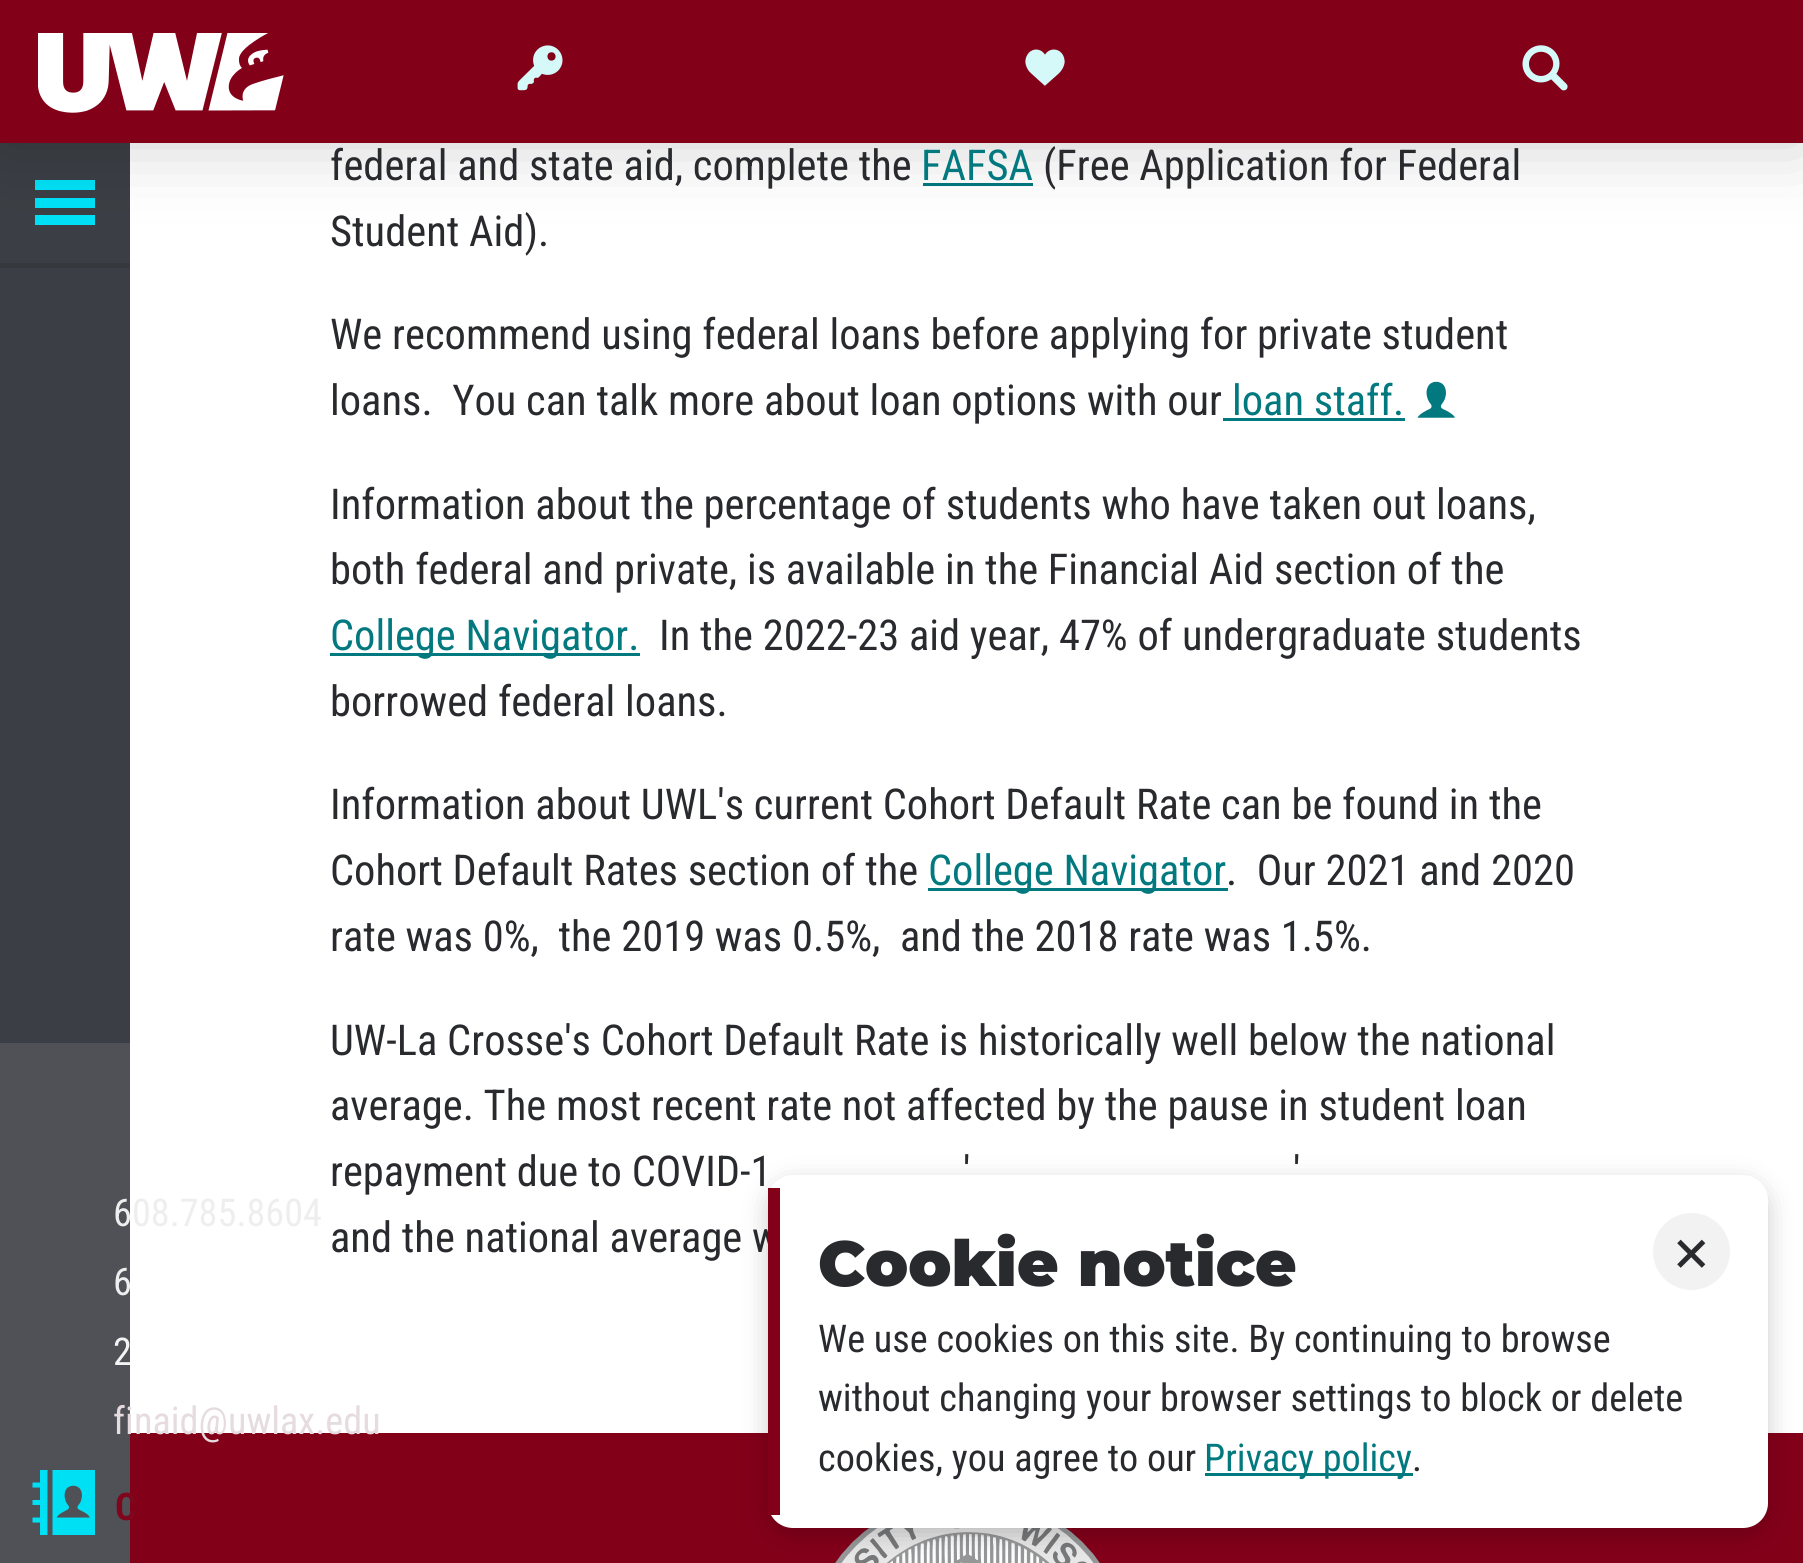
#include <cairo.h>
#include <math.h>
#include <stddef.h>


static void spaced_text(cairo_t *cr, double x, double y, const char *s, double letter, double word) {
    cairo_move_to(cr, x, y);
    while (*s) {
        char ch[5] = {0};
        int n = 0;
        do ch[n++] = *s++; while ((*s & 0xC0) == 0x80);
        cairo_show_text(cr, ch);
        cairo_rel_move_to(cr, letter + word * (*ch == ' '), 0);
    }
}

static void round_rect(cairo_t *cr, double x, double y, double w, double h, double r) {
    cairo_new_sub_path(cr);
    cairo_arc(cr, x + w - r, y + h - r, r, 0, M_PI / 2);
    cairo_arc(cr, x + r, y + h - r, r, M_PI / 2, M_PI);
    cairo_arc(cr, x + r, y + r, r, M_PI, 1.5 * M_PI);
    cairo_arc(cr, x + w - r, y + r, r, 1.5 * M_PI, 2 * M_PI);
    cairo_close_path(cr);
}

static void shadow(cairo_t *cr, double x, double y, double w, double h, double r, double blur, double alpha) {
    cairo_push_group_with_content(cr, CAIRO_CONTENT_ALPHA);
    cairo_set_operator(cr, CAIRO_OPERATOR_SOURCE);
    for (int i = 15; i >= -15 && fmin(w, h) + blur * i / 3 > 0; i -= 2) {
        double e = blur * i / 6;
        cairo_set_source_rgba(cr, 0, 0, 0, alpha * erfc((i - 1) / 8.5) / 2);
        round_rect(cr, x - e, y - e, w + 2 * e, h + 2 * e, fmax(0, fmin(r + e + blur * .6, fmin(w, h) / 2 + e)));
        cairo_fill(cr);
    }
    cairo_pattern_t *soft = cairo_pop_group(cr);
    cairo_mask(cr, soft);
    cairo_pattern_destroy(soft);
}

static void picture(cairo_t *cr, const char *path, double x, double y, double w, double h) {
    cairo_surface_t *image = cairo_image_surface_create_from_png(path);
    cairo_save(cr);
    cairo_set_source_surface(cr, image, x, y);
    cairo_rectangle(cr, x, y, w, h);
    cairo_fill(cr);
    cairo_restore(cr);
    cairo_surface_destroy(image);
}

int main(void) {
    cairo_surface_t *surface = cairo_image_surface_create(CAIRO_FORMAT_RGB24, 1803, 1563);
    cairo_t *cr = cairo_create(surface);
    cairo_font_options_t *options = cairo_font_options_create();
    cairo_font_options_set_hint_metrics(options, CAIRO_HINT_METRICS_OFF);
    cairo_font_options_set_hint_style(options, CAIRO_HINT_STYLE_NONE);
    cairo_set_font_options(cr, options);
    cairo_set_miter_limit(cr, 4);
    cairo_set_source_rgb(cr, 1, 1, 1);
    cairo_paint(cr);
    cairo_set_source_rgb(cr, 0.231, 0.243, 0.267);
    cairo_rectangle(cr, 0, 143, 130, 900);
    cairo_fill(cr);
    cairo_set_source_rgb(cr, 0.004, 0.475, 0.498);
    cairo_rectangle(cr, 923, 183, 110, 3);
    cairo_fill(cr);
    cairo_set_source_rgb(cr, 0, 0.878, 0.961);
    cairo_new_path(cr);
    cairo_move_to(cr, 35, 198);
    cairo_line_to(cr, 95, 198);
    cairo_line_to(cr, 95, 208);
    cairo_line_to(cr, 35, 208);
    cairo_close_path(cr);
    cairo_move_to(cr, 35, 215);
    cairo_line_to(cr, 95, 215);
    cairo_line_to(cr, 95, 225);
    cairo_line_to(cr, 35, 225);
    cairo_close_path(cr);
    cairo_move_to(cr, 35, 180);
    cairo_line_to(cr, 95, 180);
    cairo_line_to(cr, 95, 190);
    cairo_line_to(cr, 35, 190);
    cairo_close_path(cr);
    cairo_fill(cr);
    cairo_set_source_rgb(cr, 0, 0, 0);
    shadow(cr, 0, 0, 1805, 143, 0, 37.5, 0.2);
    cairo_set_source_rgb(cr, 0.514, 0, 0.098);
    cairo_rectangle(cr, 0, 0, 1803, 143);
    cairo_fill(cr);
    picture(cr, "img1.png", 38, 33, 246, 80);
    picture(cr, "img2.png", 517, 45, 46, 46);
    picture(cr, "img3.png", 1025, 49, 40, 37);
    picture(cr, "img4.png", 1522, 45, 46, 46);
    cairo_select_font_face(cr, "Roboto Condensed", CAIRO_FONT_SLANT_NORMAL, CAIRO_FONT_WEIGHT_NORMAL);
    cairo_set_font_size(cr, 42.5);
    cairo_set_source_rgb(cr, 0.157, 0.165, 0.18);
    cairo_move_to(cr, 330, 180);
    cairo_show_text(cr, "federal and state aid, complete the");
    cairo_set_source_rgb(cr, 0.004, 0.475, 0.498);
    cairo_move_to(cr, 921, 180);
    cairo_show_text(cr, "FAFSA");
    cairo_set_source_rgb(cr, 0.157, 0.165, 0.18);
    cairo_move_to(cr, 1043, 180);
    cairo_show_text(cr, "(Free Application for Federal");
    cairo_move_to(cr, 330, 246);
    cairo_show_text(cr, "Student Aid).");
    cairo_move_to(cr, 330, 349);
    cairo_show_text(cr, "We recommend using federal loans before applying for private student");
    cairo_move_to(cr, 330, 415);
    cairo_show_text(cr, "loans.  You can talk more about loan options with our");
    cairo_set_source_rgb(cr, 0.004, 0.475, 0.498);
    cairo_move_to(cr, 1232, 415);
    cairo_show_text(cr, "loan staff.");
    cairo_rectangle(cr, 1223, 418, 182, 3);
    cairo_fill(cr);
    picture(cr, "img5.png", 1417, 381, 38, 37);
    cairo_set_source_rgb(cr, 0.157, 0.165, 0.18);
    cairo_move_to(cr, 330, 519);
    cairo_show_text(cr, "Information about the percentage of students who have taken out loans,");
    cairo_move_to(cr, 330, 584);
    cairo_show_text(cr, "both federal and private, is available in the Financial Aid section of the");
    cairo_set_source_rgb(cr, 0.004, 0.475, 0.498);
    cairo_rectangle(cr, 330, 653, 310, 3);
    cairo_fill(cr);
    cairo_move_to(cr, 330, 650);
    cairo_show_text(cr, "College Navigator.");
    cairo_set_source_rgb(cr, 0.157, 0.165, 0.18);
    cairo_move_to(cr, 659, 650);
    cairo_show_text(cr, "In the 2022-23 aid year, 47% of undergraduate students");
    cairo_move_to(cr, 330, 716);
    cairo_show_text(cr, "borrowed federal loans.");
    cairo_move_to(cr, 330, 819);
    cairo_show_text(cr, "Information about UWL's current Cohort Default Rate can be found in the");
    cairo_move_to(cr, 330, 885);
    cairo_show_text(cr, "Cohort Default Rates section of the");
    cairo_set_source_rgb(cr, 0.004, 0.475, 0.498);
    cairo_rectangle(cr, 928, 888, 300, 3);
    cairo_fill(cr);
    cairo_move_to(cr, 928, 885);
    cairo_show_text(cr, "College Navigator");
    cairo_set_source_rgb(cr, 0.157, 0.165, 0.18);
    cairo_move_to(cr, 1226, 885);
    cairo_show_text(cr, ".  Our 2021 and 2020");
    cairo_move_to(cr, 330, 951);
    cairo_show_text(cr, "rate was 0%,  the 2019 was 0.5%,  and the 2018 rate was 1.5%.");
    cairo_move_to(cr, 330, 1055);
    cairo_show_text(cr, "UW-La Crosse's Cohort Default Rate is historically well below the national");
    cairo_move_to(cr, 330, 1120);
    cairo_show_text(cr, "average. The most recent rate not affected by the pause in student loan");
    cairo_move_to(cr, 330, 1186);
    cairo_show_text(cr, "repayment due to COVID-1");
    cairo_move_to(cr, 963, 1186);
    cairo_show_text(cr, "'");
    cairo_move_to(cr, 1293, 1186);
    cairo_show_text(cr, "'");
    cairo_move_to(cr, 330, 1252);
    cairo_show_text(cr, "and the national average w");
    cairo_set_source_rgb(cr, 0.208, 0.22, 0.239);
    cairo_rectangle(cr, 0, 263, 130, 5);
    cairo_fill(cr);
    cairo_set_source_rgb(cr, 0.31, 0.318, 0.341);
    cairo_rectangle(cr, 0, 1043, 130, 520);
    cairo_fill(cr);
    cairo_set_font_size(cr, 38.25);
    cairo_set_source_rgb(cr, 0.933, 0.933, 0.937);
    cairo_move_to(cr, 113, 1226);
    cairo_show_text(cr, "608.785.8604");
    cairo_move_to(cr, 113, 1295);
    cairo_show_text(cr, "6");
    cairo_set_source_rgb(cr, 0.953, 0.957, 0.957);
    cairo_move_to(cr, 113, 1365);
    cairo_show_text(cr, "2");
    cairo_set_source_rgb(cr, 0.514, 0, 0.098);
    cairo_rectangle(cr, 130, 1433, 1673, 130);
    cairo_fill(cr);
    cairo_set_source_rgb(cr, 0.902, 0.863, 0.875);
    cairo_move_to(cr, 113, 1434);
    cairo_show_text(cr, "finaid@uwlax.edu");
    picture(cr, "img6.png", 32, 1470, 63, 65);
    cairo_select_font_face(cr, "Roboto Condensed", CAIRO_FONT_SLANT_NORMAL, CAIRO_FONT_WEIGHT_BOLD);
    cairo_set_font_size(cr, 38);
    cairo_set_source_rgb(cr, 0.498, 0.024, 0.114);
    spaced_text(cr, 115, 1520, "C", 4, 0);
    picture(cr, "img8.png", 835, 1528, 265, 35);
    cairo_set_source_rgb(cr, 0, 0, 0);
    shadow(cr, 768, 1183, 1000, 352, 25, 12.5, 0.2);
    cairo_set_source_rgb(cr, 1, 1, 1);
    round_rect(cr, 768, 1175, 1000, 353, 25);
    cairo_fill(cr);
    cairo_set_source_rgb(cr, 0.514, 0, 0.098);
    cairo_rectangle(cr, 768, 1188, 12, 327);
    cairo_fill(cr);
    cairo_select_font_face(cr, "Montserrat Black", CAIRO_FONT_SLANT_NORMAL, CAIRO_FONT_WEIGHT_NORMAL);
    cairo_set_font_size(cr, 63.75);
    cairo_set_source_rgb(cr, 0.157, 0.165, 0.18);
    cairo_move_to(cr, 818, 1286);
    cairo_show_text(cr, "Cookie notice");
    cairo_set_source_rgb(cr, 0.949, 0.949, 0.953);
    cairo_new_path(cr);
    cairo_arc(cr, 1691.5, 1251.5, 38.5, 0, 2 * M_PI);
    cairo_fill(cr);
    picture(cr, "img7.png", 1677, 1239, 29, 29);
    cairo_select_font_face(cr, "Roboto Condensed", CAIRO_FONT_SLANT_NORMAL, CAIRO_FONT_WEIGHT_NORMAL);
    cairo_set_font_size(cr, 38.25);
    cairo_set_source_rgb(cr, 0.157, 0.165, 0.18);
    cairo_move_to(cr, 818, 1352);
    cairo_show_text(cr, "We use cookies on this site. By continuing to browse");
    cairo_move_to(cr, 818, 1411);
    cairo_show_text(cr, "without changing your browser settings to block or delete");
    cairo_move_to(cr, 818, 1471);
    cairo_show_text(cr, "cookies, you agree to our");
    cairo_set_source_rgb(cr, 0.004, 0.475, 0.498);
    cairo_rectangle(cr, 1205, 1473, 208, 3);
    cairo_fill(cr);
    cairo_move_to(cr, 1204, 1471);
    cairo_show_text(cr, "Privacy policy");
    cairo_set_source_rgb(cr, 0.157, 0.165, 0.18);
    cairo_move_to(cr, 1412, 1471);
    cairo_show_text(cr, ".");
    cairo_surface_write_to_png(surface, "page.png");
    cairo_font_options_destroy(options);
    cairo_destroy(cr);
    cairo_surface_destroy(surface);
    return 0;
}
